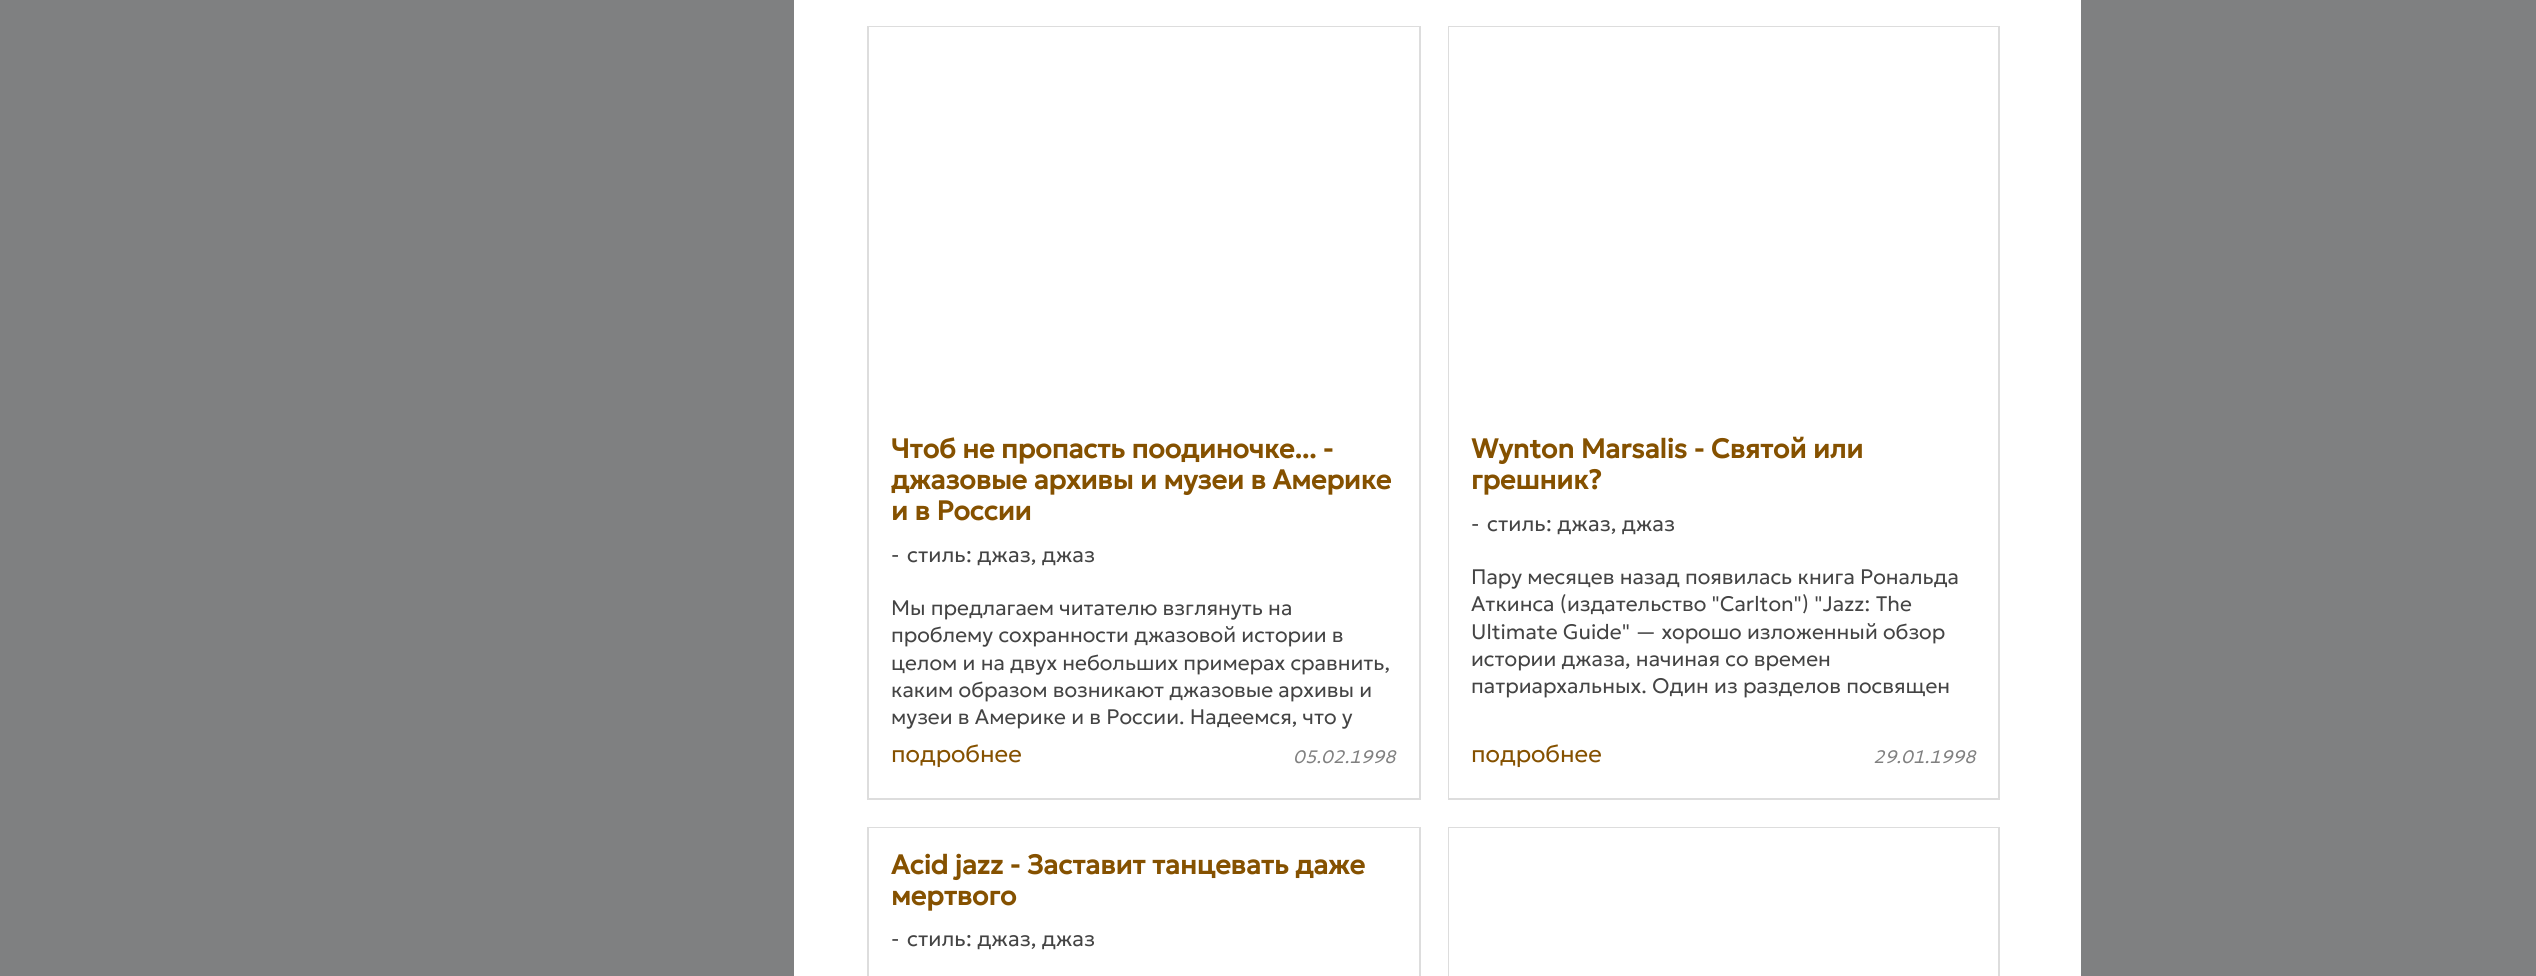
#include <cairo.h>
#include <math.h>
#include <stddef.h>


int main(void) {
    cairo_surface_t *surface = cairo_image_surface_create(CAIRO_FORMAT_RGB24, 2536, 976);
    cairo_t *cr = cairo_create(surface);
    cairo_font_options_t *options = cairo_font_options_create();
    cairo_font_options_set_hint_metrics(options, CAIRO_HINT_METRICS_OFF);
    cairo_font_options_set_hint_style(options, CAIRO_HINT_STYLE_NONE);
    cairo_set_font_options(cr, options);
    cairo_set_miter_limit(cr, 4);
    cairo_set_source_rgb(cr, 0.498, 0.502, 0.506);
    cairo_paint(cr);
    cairo_set_source_rgb(cr, 1, 1, 1);
    cairo_rectangle(cr, 794, 0, 1287, 976);
    cairo_fill(cr);
    cairo_rectangle(cr, 868, 27, 552, 772);
    cairo_set_source_rgb(cr, 0.867, 0.867, 0.867);
    cairo_stroke(cr);
    cairo_set_source_rgb(cr, 1, 1, 1);
    cairo_rectangle(cr, 869, 27, 550, 1);
    cairo_fill(cr);
    cairo_select_font_face(cr, "Geologica", CAIRO_FONT_SLANT_NORMAL, CAIRO_FONT_WEIGHT_BOLD);
    cairo_set_font_size(cr, 27);
    cairo_set_source_rgb(cr, 0.522, 0.318, 0);
    cairo_move_to(cr, 891, 458);
    cairo_show_text(cr, "Чтоб не пропасть поодиночке... -");
    cairo_move_to(cr, 891, 489);
    cairo_show_text(cr, "джазовые архивы и музеи в Америке");
    cairo_move_to(cr, 891, 520);
    cairo_show_text(cr, "и в России");
    cairo_select_font_face(cr, "Geologica Light", CAIRO_FONT_SLANT_NORMAL, CAIRO_FONT_WEIGHT_NORMAL);
    cairo_set_font_size(cr, 21.5);
    cairo_set_source_rgb(cr, 0.267, 0.267, 0.267);
    cairo_move_to(cr, 891, 562);
    cairo_show_text(cr, "-");
    cairo_move_to(cr, 907, 562);
    cairo_show_text(cr, "стиль: джаз, джаз");
    cairo_set_font_size(cr, 21);
    cairo_move_to(cr, 891, 615);
    cairo_show_text(cr, "Мы предлагаем читателю взглянуть на");
    cairo_move_to(cr, 891, 642);
    cairo_show_text(cr, "проблему сохранности джазовой истории в");
    cairo_move_to(cr, 891, 670);
    cairo_show_text(cr, "целом и на двух небольших примерах сравнить,");
    cairo_move_to(cr, 891, 697);
    cairo_show_text(cr, "каким образом возникают джазовые архивы и");
    cairo_move_to(cr, 891, 724);
    cairo_show_text(cr, "музеи в Америке и в России. Надеемся, что у");
    cairo_set_font_size(cr, 24);
    cairo_set_source_rgb(cr, 0.522, 0.318, 0);
    cairo_move_to(cr, 891, 762);
    cairo_show_text(cr, "подробнее");
    cairo_select_font_face(cr, "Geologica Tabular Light", CAIRO_FONT_SLANT_ITALIC, CAIRO_FONT_WEIGHT_NORMAL);
    cairo_set_font_size(cr, 18);
    cairo_set_source_rgb(cr, 0.502, 0.502, 0.502);
    cairo_move_to(cr, 1293, 763);
    cairo_show_text(cr, "05.02.1998");
    cairo_rectangle(cr, 1449, 27, 550, 772);
    cairo_set_source_rgb(cr, 0.867, 0.867, 0.867);
    cairo_stroke(cr);
    cairo_set_source_rgb(cr, 1, 1, 1);
    cairo_rectangle(cr, 1449, 27, 549, 771);
    cairo_fill(cr);
    cairo_select_font_face(cr, "Geologica", CAIRO_FONT_SLANT_NORMAL, CAIRO_FONT_WEIGHT_BOLD);
    cairo_set_font_size(cr, 27);
    cairo_set_source_rgb(cr, 0.522, 0.318, 0);
    cairo_move_to(cr, 1471, 458);
    cairo_show_text(cr, "Wynton Marsalis - Святой или");
    cairo_move_to(cr, 1471, 489);
    cairo_show_text(cr, "грешник?");
    cairo_select_font_face(cr, "Geologica Light", CAIRO_FONT_SLANT_NORMAL, CAIRO_FONT_WEIGHT_NORMAL);
    cairo_set_font_size(cr, 21.5);
    cairo_set_source_rgb(cr, 0.267, 0.267, 0.267);
    cairo_move_to(cr, 1471, 531);
    cairo_show_text(cr, "-");
    cairo_move_to(cr, 1487, 531);
    cairo_show_text(cr, "стиль: джаз, джаз");
    cairo_set_font_size(cr, 21);
    cairo_move_to(cr, 1471, 584);
    cairo_show_text(cr, "Пару месяцев назад появилась книга Рональда");
    cairo_move_to(cr, 1471, 611);
    cairo_show_text(cr, "Аткинса (издательство \"Carlton\") \"Jazz: The");
    cairo_move_to(cr, 1471, 639);
    cairo_show_text(cr, "Ultimate Guide\" — хорошо изложенный обзор");
    cairo_move_to(cr, 1471, 666);
    cairo_show_text(cr, "истории джаза, начиная со времен");
    cairo_move_to(cr, 1471, 693);
    cairo_show_text(cr, "патриархальных. Один из разделов посвящен");
    cairo_set_font_size(cr, 24);
    cairo_set_source_rgb(cr, 0.522, 0.318, 0);
    cairo_move_to(cr, 1471, 762);
    cairo_show_text(cr, "подробнее");
    cairo_select_font_face(cr, "Geologica Tabular Light", CAIRO_FONT_SLANT_ITALIC, CAIRO_FONT_WEIGHT_NORMAL);
    cairo_set_font_size(cr, 18);
    cairo_set_source_rgb(cr, 0.502, 0.502, 0.502);
    cairo_move_to(cr, 1873, 763);
    cairo_show_text(cr, "29.01.1998");
    cairo_rectangle(cr, 868, 828, 552, 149);
    cairo_set_source_rgb(cr, 0.867, 0.867, 0.867);
    cairo_stroke(cr);
    cairo_set_source_rgb(cr, 1, 1, 1);
    cairo_rectangle(cr, 869, 828, 550, 1);
    cairo_fill(cr);
    cairo_select_font_face(cr, "Geologica", CAIRO_FONT_SLANT_NORMAL, CAIRO_FONT_WEIGHT_BOLD);
    cairo_set_font_size(cr, 27);
    cairo_set_source_rgb(cr, 0.522, 0.318, 0);
    cairo_move_to(cr, 891, 874);
    cairo_show_text(cr, "Acid jazz - Заставит танцевать даже");
    cairo_move_to(cr, 891, 905);
    cairo_show_text(cr, "мертвого");
    cairo_select_font_face(cr, "Geologica Light", CAIRO_FONT_SLANT_NORMAL, CAIRO_FONT_WEIGHT_NORMAL);
    cairo_set_font_size(cr, 21.5);
    cairo_set_source_rgb(cr, 0.267, 0.267, 0.267);
    cairo_move_to(cr, 891, 946);
    cairo_show_text(cr, "-");
    cairo_move_to(cr, 907, 946);
    cairo_show_text(cr, "стиль: джаз, джаз");
    cairo_rectangle(cr, 1449, 828, 550, 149);
    cairo_set_source_rgb(cr, 0.867, 0.867, 0.867);
    cairo_stroke(cr);
    cairo_set_source_rgb(cr, 1, 1, 1);
    cairo_rectangle(cr, 1449, 828, 549, 148);
    cairo_fill(cr);
    cairo_surface_write_to_png(surface, "page.png");
    cairo_font_options_destroy(options);
    cairo_destroy(cr);
    cairo_surface_destroy(surface);
    return 0;
}
